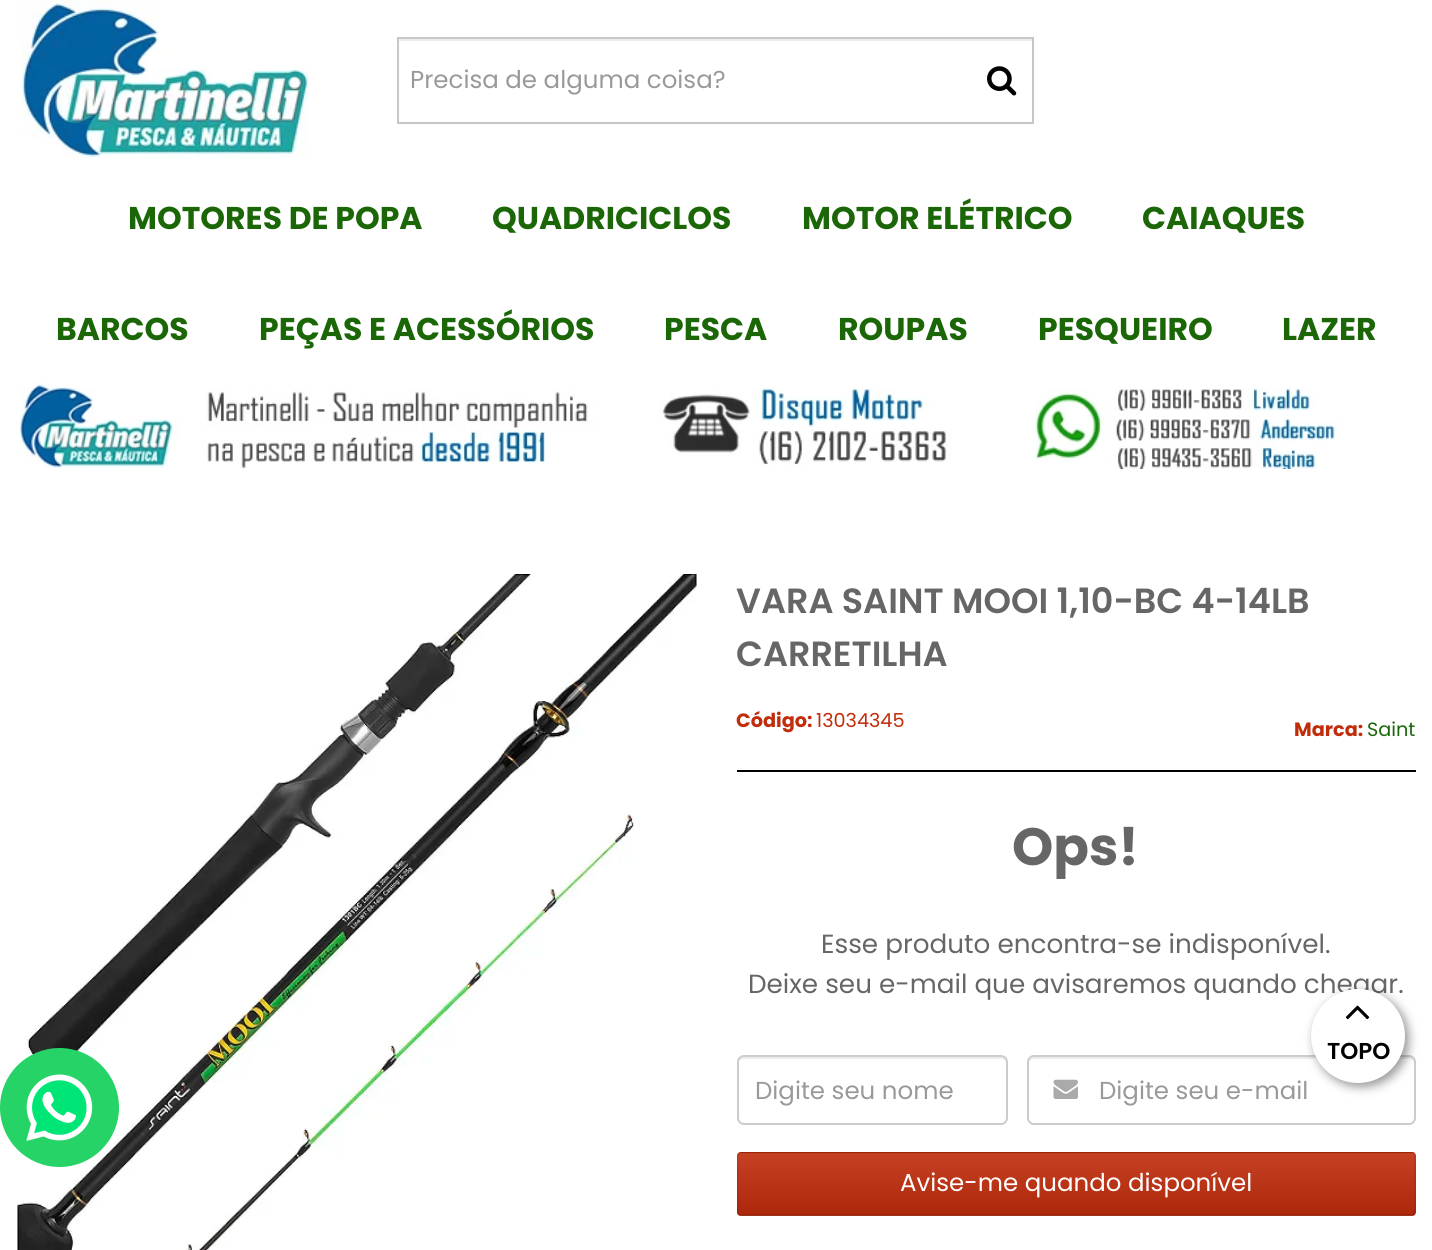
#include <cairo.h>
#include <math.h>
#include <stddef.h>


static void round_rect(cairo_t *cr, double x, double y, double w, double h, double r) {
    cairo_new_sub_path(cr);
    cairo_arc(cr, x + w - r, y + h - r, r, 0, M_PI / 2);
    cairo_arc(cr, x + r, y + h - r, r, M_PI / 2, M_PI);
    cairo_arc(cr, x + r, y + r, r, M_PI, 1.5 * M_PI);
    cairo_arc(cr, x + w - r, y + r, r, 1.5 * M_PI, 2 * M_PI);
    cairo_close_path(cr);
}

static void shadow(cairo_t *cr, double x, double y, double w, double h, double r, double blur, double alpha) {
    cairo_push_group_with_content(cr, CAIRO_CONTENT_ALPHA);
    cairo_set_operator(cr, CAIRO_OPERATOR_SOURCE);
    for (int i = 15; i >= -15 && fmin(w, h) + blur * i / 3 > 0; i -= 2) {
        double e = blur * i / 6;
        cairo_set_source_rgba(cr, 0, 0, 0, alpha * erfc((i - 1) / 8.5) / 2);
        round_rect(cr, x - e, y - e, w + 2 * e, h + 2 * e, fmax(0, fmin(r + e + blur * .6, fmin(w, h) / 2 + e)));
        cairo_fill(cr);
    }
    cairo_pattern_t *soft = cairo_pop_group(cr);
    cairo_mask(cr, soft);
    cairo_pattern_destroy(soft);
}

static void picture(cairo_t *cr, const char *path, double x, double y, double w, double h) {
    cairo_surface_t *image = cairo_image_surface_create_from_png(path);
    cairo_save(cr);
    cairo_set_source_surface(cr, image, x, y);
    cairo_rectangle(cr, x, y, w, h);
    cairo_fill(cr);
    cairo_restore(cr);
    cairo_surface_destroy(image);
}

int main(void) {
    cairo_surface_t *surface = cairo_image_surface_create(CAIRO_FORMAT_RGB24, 1432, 1250);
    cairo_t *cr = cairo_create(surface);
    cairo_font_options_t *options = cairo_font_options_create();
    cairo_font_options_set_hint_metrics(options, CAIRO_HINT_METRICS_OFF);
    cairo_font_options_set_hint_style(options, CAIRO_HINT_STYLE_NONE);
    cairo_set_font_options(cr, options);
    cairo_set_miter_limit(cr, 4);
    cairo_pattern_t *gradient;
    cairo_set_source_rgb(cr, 1, 1, 1);
    cairo_paint(cr);
    picture(cr, "img1.png", 21, 0, 287, 158);
    cairo_set_source_rgb(cr, 0.925, 0.925, 0.925);
    cairo_rectangle(cr, 399, 39, 634, 2);
    cairo_fill(cr);
    cairo_rectangle(cr, 398, 38, 635, 85);
    cairo_set_source_rgb(cr, 0.78, 0.78, 0.78);
    cairo_stroke(cr);
    cairo_select_font_face(cr, "Poppins", CAIRO_FONT_SLANT_NORMAL, CAIRO_FONT_WEIGHT_NORMAL);
    cairo_set_font_size(cr, 24.5);
    cairo_set_source_rgb(cr, 0.6, 0.6, 0.6);
    cairo_move_to(cr, 410, 88);
    cairo_show_text(cr, "Precisa de alguma coisa?");
    picture(cr, "img2.png", 987, 66, 30, 30);
    cairo_select_font_face(cr, "Poppins", CAIRO_FONT_SLANT_NORMAL, CAIRO_FONT_WEIGHT_BOLD);
    cairo_set_font_size(cr, 31.5);
    cairo_set_source_rgb(cr, 0.106, 0.404, 0.035);
    cairo_move_to(cr, 128, 229);
    cairo_show_text(cr, "MOTORES DE POPA");
    cairo_move_to(cr, 492, 229);
    cairo_show_text(cr, "QUADRICICLOS");
    cairo_move_to(cr, 802, 229);
    cairo_show_text(cr, "MOTOR ELÉTRICO");
    cairo_move_to(cr, 1142, 229);
    cairo_show_text(cr, "CAIAQUES");
    cairo_move_to(cr, 56, 340);
    cairo_show_text(cr, "BARCOS");
    cairo_move_to(cr, 259, 340);
    cairo_show_text(cr, "PEÇAS E ACESSÓRIOS");
    cairo_move_to(cr, 664, 340);
    cairo_show_text(cr, "PESCA");
    cairo_move_to(cr, 838, 340);
    cairo_show_text(cr, "ROUPAS");
    cairo_move_to(cr, 1038, 340);
    cairo_show_text(cr, "PESQUEIRO");
    cairo_move_to(cr, 1282, 340);
    cairo_show_text(cr, "LAZER");
    picture(cr, "img3.png", 19, 378, 1320, 91);
    picture(cr, "img4.png", 17, 574, 680, 676);
    cairo_select_font_face(cr, "Poppins SemiBold", CAIRO_FONT_SLANT_NORMAL, CAIRO_FONT_WEIGHT_NORMAL);
    cairo_set_font_size(cr, 35);
    cairo_set_source_rgb(cr, 0.4, 0.4, 0.4);
    cairo_move_to(cr, 736, 613);
    cairo_show_text(cr, "VARA SAINT MOOI 1,10-BC 4-14LB");
    cairo_move_to(cr, 736, 666);
    cairo_show_text(cr, "CARRETILHA");
    cairo_set_source_rgb(cr, 0, 0, 0);
    cairo_rectangle(cr, 737, 770, 679, 2);
    cairo_fill(cr);
    cairo_select_font_face(cr, "Poppins", CAIRO_FONT_SLANT_NORMAL, CAIRO_FONT_WEIGHT_BOLD);
    cairo_set_font_size(cr, 19.25);
    cairo_set_source_rgb(cr, 0.757, 0.173, 0.043);
    cairo_move_to(cr, 736, 727);
    cairo_show_text(cr, "Código:");
    cairo_select_font_face(cr, "Poppins", CAIRO_FONT_SLANT_NORMAL, CAIRO_FONT_WEIGHT_NORMAL);
    cairo_move_to(cr, 816, 727);
    cairo_show_text(cr, "13034345");
    cairo_select_font_face(cr, "Poppins", CAIRO_FONT_SLANT_NORMAL, CAIRO_FONT_WEIGHT_BOLD);
    cairo_move_to(cr, 1294, 736);
    cairo_show_text(cr, "Marca:");
    cairo_select_font_face(cr, "Poppins", CAIRO_FONT_SLANT_NORMAL, CAIRO_FONT_WEIGHT_NORMAL);
    cairo_set_source_rgb(cr, 0.106, 0.404, 0.035);
    cairo_move_to(cr, 1367, 736);
    cairo_show_text(cr, "Saint");
    cairo_select_font_face(cr, "Poppins", CAIRO_FONT_SLANT_NORMAL, CAIRO_FONT_WEIGHT_BOLD);
    cairo_set_font_size(cr, 52.5);
    cairo_set_source_rgb(cr, 0.4, 0.4, 0.4);
    cairo_move_to(cr, 1012, 865);
    cairo_show_text(cr, "Ops!");
    cairo_select_font_face(cr, "Poppins", CAIRO_FONT_SLANT_NORMAL, CAIRO_FONT_WEIGHT_NORMAL);
    cairo_set_font_size(cr, 26.25);
    cairo_move_to(cr, 821, 953);
    cairo_show_text(cr, "Esse produto encontra-se indisponível.");
    cairo_move_to(cr, 748, 993);
    cairo_show_text(cr, "Deixe seu e-mail que avisaremos quando chegar.");
    cairo_set_source_rgb(cr, 0.925, 0.925, 0.925);
    cairo_new_path(cr);
    cairo_move_to(cr, 744, 1059);
    cairo_line_to(cr, 1001, 1059);
    cairo_curve_to(cr, 1004, 1059, 1006, 1061, 1006, 1064);
    cairo_line_to(cr, 1006, 1062);
    cairo_curve_to(cr, 1006, 1059, 1004, 1057, 1001, 1057);
    cairo_line_to(cr, 744, 1057);
    cairo_curve_to(cr, 742, 1057, 739, 1059, 739, 1061);
    cairo_curve_to(cr, 740, 1060, 742, 1059, 744, 1059);
    cairo_close_path(cr);
    cairo_fill(cr);
    round_rect(cr, 738, 1056, 269, 68, 6);
    cairo_set_source_rgb(cr, 0.8, 0.8, 0.8);
    cairo_stroke(cr);
    cairo_set_font_size(cr, 24.5);
    cairo_set_source_rgb(cr, 0.6, 0.6, 0.6);
    cairo_move_to(cr, 755, 1099);
    cairo_show_text(cr, "Digite seu nome");
    cairo_set_source_rgb(cr, 0.925, 0.925, 0.925);
    cairo_new_path(cr);
    cairo_move_to(cr, 1034, 1059);
    cairo_line_to(cr, 1409, 1059);
    cairo_curve_to(cr, 1412, 1059, 1414, 1061, 1414, 1064);
    cairo_curve_to(cr, 1414, 1061, 1413, 1057, 1409, 1057);
    cairo_line_to(cr, 1034, 1057);
    cairo_curve_to(cr, 1030, 1057, 1029, 1061, 1029, 1064);
    cairo_curve_to(cr, 1029, 1061, 1031, 1059, 1034, 1059);
    cairo_close_path(cr);
    cairo_fill(cr);
    round_rect(cr, 1028, 1056, 387, 68, 6);
    cairo_set_source_rgb(cr, 0.8, 0.8, 0.8);
    cairo_stroke(cr);
    picture(cr, "img5.png", 1053, 1079, 25, 20);
    cairo_set_source_rgb(cr, 0.6, 0.6, 0.6);
    cairo_move_to(cr, 1099, 1099);
    cairo_show_text(cr, "Digite seu e-mail");
    cairo_set_source_rgb(cr, 0.757, 0.173, 0.043);
    round_rect(cr, 737, 1152, 679, 64, 4);
    cairo_fill(cr);
    cairo_save(cr);
    round_rect(cr, 737, 1152, 679, 64, 4);
    cairo_clip(cr);
    gradient = cairo_pattern_create_linear(1076, 1092, 1076, 1153);
    cairo_pattern_add_color_stop_rgba(gradient, 0, 1, 1, 1, 0.1);
    cairo_pattern_add_color_stop_rgba(gradient, 1, 0, 0, 0, 0.1);
    cairo_set_source(cr, gradient);
    cairo_pattern_destroy(gradient);
    cairo_rectangle(cr, 737, 1152, 679, 1);
    cairo_fill(cr);
    gradient = cairo_pattern_create_linear(1076, 1153, 1076, 1215);
    cairo_pattern_add_color_stop_rgba(gradient, 0, 1, 1, 1, 0.1);
    cairo_pattern_add_color_stop_rgba(gradient, 1, 0, 0, 0, 0.1);
    cairo_set_source(cr, gradient);
    cairo_pattern_destroy(gradient);
    cairo_rectangle(cr, 737, 1153, 679, 62);
    cairo_fill(cr);
    gradient = cairo_pattern_create_linear(1076, 1215, 1076, 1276);
    cairo_pattern_add_color_stop_rgba(gradient, 0, 1, 1, 1, 0.1);
    cairo_pattern_add_color_stop_rgba(gradient, 1, 0, 0, 0, 0.1);
    cairo_set_source(cr, gradient);
    cairo_pattern_destroy(gradient);
    cairo_rectangle(cr, 737, 1215, 679, 1);
    cairo_fill(cr);
    cairo_restore(cr);
    cairo_save(cr);
    cairo_rectangle(cr, 737, 1152, 679, 64);
    cairo_clip(cr);
    cairo_new_path(cr);
    cairo_move_to(cr, 1414, 1214.5);
    cairo_line_to(cr, 1412, 1215.5);
    cairo_line_to(cr, 740, 1215.5);
    cairo_line_to(cr, 738.5, 1214.5);
    cairo_set_source_rgba(cr, 0, 0, 0, 0.2);
    cairo_set_line_width(cr, 1.8);
    cairo_stroke(cr);
    cairo_new_path(cr);
    cairo_move_to(cr, 738.5, 1214.5);
    cairo_curve_to(cr, 736.5, 1212.5, 737.5, 1170.5, 737.5, 1164.5);
    cairo_curve_to(cr, 737.5, 1160, 736, 1152.5, 740, 1152.5);
    cairo_line_to(cr, 1412, 1152.5);
    cairo_curve_to(cr, 1416.5, 1152.5, 1415, 1160, 1415, 1164.5);
    cairo_curve_to(cr, 1415, 1170.5, 1416, 1212.5, 1414, 1214.5);
    cairo_set_source_rgba(cr, 0, 0, 0, 0.1);
    cairo_stroke(cr);
    cairo_restore(cr);
    cairo_set_source_rgb(cr, 1, 1, 1);
    cairo_move_to(cr, 900, 1191);
    cairo_show_text(cr, "Avise-me quando disponível");
    cairo_set_source_rgb(cr, 0.145, 0.827, 0.4);
    cairo_new_path(cr);
    cairo_arc(cr, 59.5, 1107.5, 59.5, 0, 2 * M_PI);
    cairo_fill(cr);
    picture(cr, "img6.png", 26, 1074, 67, 67);
    cairo_set_source_rgb(cr, 0, 0, 0);
    shadow(cr, 1314, 992, 95, 95, 47.5, 5, 0.4);
    cairo_set_source_rgb(cr, 1, 1, 1);
    cairo_arc(cr, 1358, 1036, 47, 0, 2 * M_PI);
    cairo_fill(cr);
    picture(cr, "img7.png", 1345, 1005, 25, 15);
    cairo_select_font_face(cr, "Poppins SemiBold", CAIRO_FONT_SLANT_NORMAL, CAIRO_FONT_WEIGHT_NORMAL);
    cairo_set_font_size(cr, 23);
    cairo_set_source_rgb(cr, 0, 0, 0);
    cairo_move_to(cr, 1327, 1059);
    cairo_show_text(cr, "TOPO");
    cairo_surface_write_to_png(surface, "page.png");
    cairo_font_options_destroy(options);
    cairo_destroy(cr);
    cairo_surface_destroy(surface);
    return 0;
}
